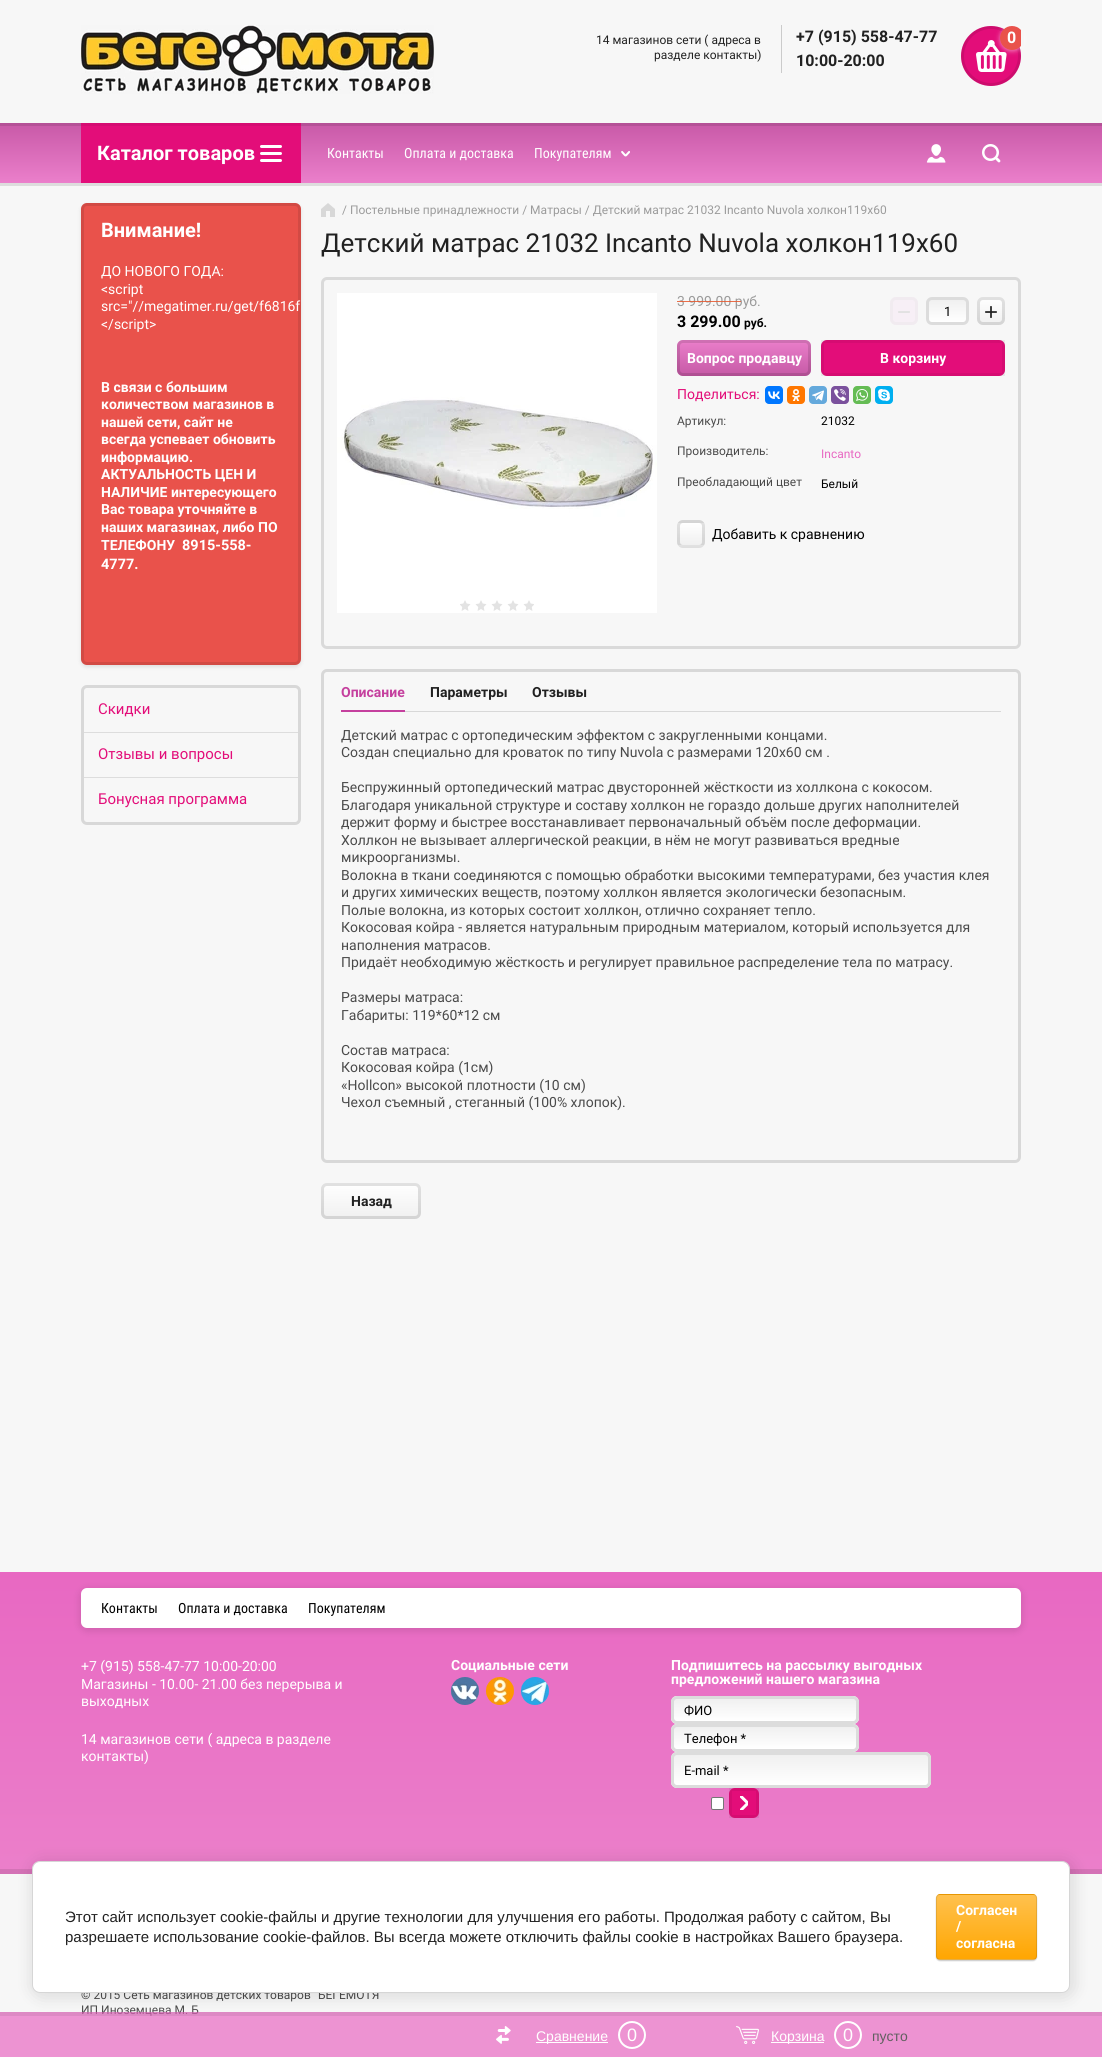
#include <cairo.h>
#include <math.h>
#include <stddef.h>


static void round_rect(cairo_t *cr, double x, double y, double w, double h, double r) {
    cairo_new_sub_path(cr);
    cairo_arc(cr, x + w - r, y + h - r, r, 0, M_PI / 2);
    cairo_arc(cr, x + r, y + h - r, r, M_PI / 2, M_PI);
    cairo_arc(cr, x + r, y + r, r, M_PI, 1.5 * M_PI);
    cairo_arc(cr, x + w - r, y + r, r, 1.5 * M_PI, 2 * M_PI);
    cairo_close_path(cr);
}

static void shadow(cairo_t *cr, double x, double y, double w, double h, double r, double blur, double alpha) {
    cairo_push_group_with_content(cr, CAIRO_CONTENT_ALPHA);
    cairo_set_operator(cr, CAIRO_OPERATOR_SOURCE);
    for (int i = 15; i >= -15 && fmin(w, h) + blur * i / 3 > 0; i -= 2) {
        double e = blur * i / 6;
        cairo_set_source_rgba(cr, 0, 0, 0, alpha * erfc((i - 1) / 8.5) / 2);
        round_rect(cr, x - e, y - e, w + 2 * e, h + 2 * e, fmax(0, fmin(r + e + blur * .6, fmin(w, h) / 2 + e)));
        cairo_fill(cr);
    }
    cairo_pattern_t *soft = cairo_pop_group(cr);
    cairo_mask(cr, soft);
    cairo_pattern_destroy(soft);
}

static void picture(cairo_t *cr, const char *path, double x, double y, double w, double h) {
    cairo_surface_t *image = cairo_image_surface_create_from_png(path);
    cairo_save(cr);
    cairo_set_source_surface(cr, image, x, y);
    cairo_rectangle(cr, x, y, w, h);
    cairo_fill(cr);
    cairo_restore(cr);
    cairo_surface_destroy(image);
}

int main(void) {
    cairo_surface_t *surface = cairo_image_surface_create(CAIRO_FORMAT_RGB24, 1102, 2057);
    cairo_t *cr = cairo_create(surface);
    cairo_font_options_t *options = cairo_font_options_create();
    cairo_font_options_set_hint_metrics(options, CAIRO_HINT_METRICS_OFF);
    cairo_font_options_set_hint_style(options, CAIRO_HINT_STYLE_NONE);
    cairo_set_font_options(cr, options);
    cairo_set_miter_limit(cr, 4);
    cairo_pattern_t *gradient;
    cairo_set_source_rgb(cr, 0.965, 0.965, 0.965);
    cairo_paint(cr);
    picture(cr, "img1.png", 81, 25, 353, 69);
    cairo_select_font_face(cr, "Roboto", CAIRO_FONT_SLANT_NORMAL, CAIRO_FONT_WEIGHT_NORMAL);
    cairo_set_font_size(cr, 12);
    cairo_set_source_rgb(cr, 0.129, 0.129, 0.129);
    cairo_move_to(cr, 596, 44);
    cairo_show_text(cr, "14 магазинов сети ( адреса в");
    cairo_move_to(cr, 654, 59);
    cairo_show_text(cr, "разделе контакты)");
    cairo_set_source_rgb(cr, 0.796, 0.796, 0.796);
    cairo_rectangle(cr, 781, 25, 1, 48);
    cairo_fill(cr);
    cairo_select_font_face(cr, "Roboto", CAIRO_FONT_SLANT_NORMAL, CAIRO_FONT_WEIGHT_BOLD);
    cairo_set_font_size(cr, 16);
    cairo_set_source_rgb(cr, 0.129, 0.129, 0.129);
    cairo_move_to(cr, 796, 42);
    cairo_show_text(cr, "+7 (915) 558-47-77");
    cairo_move_to(cr, 796, 66);
    cairo_show_text(cr, "10:00-20:00");
    cairo_set_source_rgb(cr, 0.89, 0.051, 0.475);
    cairo_new_path(cr);
    cairo_arc(cr, 991, 56, 30, 0, 2 * M_PI);
    cairo_fill(cr);
    cairo_arc(cr, 991, 56, 28.5, 0, 2 * M_PI);
    cairo_set_source_rgba(cr, 0, 0, 0, 0.1);
    cairo_set_line_width(cr, 3);
    cairo_stroke(cr);
    picture(cr, "img2.png", 976, 40, 31, 32);
    cairo_set_source_rgb(cr, 1, 1, 1);
    shadow(cr, 1000, 27, 24, 24, 12, 2.5, 0.5);
    cairo_set_source_rgb(cr, 0.914, 0.322, 0.294);
    cairo_arc(cr, 1012, 38, 12, 0, 2 * M_PI);
    cairo_fill(cr);
    cairo_set_source_rgb(cr, 1, 1, 1);
    cairo_move_to(cr, 1007, 43);
    cairo_show_text(cr, "0");
    cairo_set_source_rgb(cr, 0.965, 0.965, 0.965);
    cairo_rectangle(cr, 1021, 30, 3, 16);
    cairo_fill(cr);
    cairo_set_source_rgb(cr, 0.867, 0.867, 0.867);
    cairo_rectangle(cr, 0, 183, 1102, 3);
    cairo_fill(cr);
    gradient = cairo_pattern_create_linear(551, 183, 551, 123);
    cairo_pattern_add_color_stop_rgba(gradient, 0, 0.922, 0.498, 0.796, 1);
    cairo_pattern_add_color_stop_rgba(gradient, 1, 0.784, 0.349, 0.655, 1);
    cairo_set_source(cr, gradient);
    cairo_pattern_destroy(gradient);
    cairo_rectangle(cr, 0, 126, 1102, 57);
    cairo_fill(cr);
    cairo_set_source_rgb(cr, 0.71, 0.318, 0.592);
    cairo_rectangle(cr, 0, 123, 1102, 3);
    cairo_fill(cr);
    cairo_set_source_rgb(cr, 0.89, 0.051, 0.475);
    cairo_rectangle(cr, 81, 126, 220, 57);
    cairo_fill(cr);
    cairo_set_source_rgb(cr, 0.835, 0.047, 0.447);
    cairo_rectangle(cr, 81, 123, 220, 3);
    cairo_fill(cr);
    cairo_set_font_size(cr, 20);
    cairo_set_source_rgb(cr, 1, 1, 1);
    cairo_move_to(cr, 97, 160);
    cairo_show_text(cr, "Каталог товаров");
    picture(cr, "img3.png", 260, 145, 22, 17);
    cairo_select_font_face(cr, "Roboto Condensed", CAIRO_FONT_SLANT_NORMAL, CAIRO_FONT_WEIGHT_NORMAL);
    cairo_set_font_size(cr, 14);
    cairo_move_to(cr, 327, 158);
    cairo_show_text(cr, "Контакты");
    cairo_move_to(cr, 404, 158);
    cairo_show_text(cr, "Оплата и доставка");
    cairo_move_to(cr, 534, 158);
    cairo_show_text(cr, "Покупателям");
    picture(cr, "img4.png", 621, 151, 9, 6);
    picture(cr, "img5.png", 926, 144, 20, 19);
    picture(cr, "img6.png", 982, 144, 19, 19);
    cairo_set_source_rgb(cr, 0, 0, 0);
    shadow(cr, 81, 205, 220, 462, 6, 2, 0.1);
    cairo_set_source_rgb(cr, 0.914, 0.322, 0.294);
    round_rect(cr, 81, 203, 220, 462, 6);
    cairo_fill(cr);
    round_rect(cr, 82.5, 204.5, 217, 459, 4.5);
    cairo_set_source_rgba(cr, 0, 0, 0, 0.1);
    cairo_stroke(cr);
    cairo_select_font_face(cr, "Roboto", CAIRO_FONT_SLANT_NORMAL, CAIRO_FONT_WEIGHT_BOLD);
    cairo_set_font_size(cr, 20);
    cairo_set_source_rgb(cr, 1, 1, 1);
    cairo_move_to(cr, 101, 237);
    cairo_show_text(cr, "Внимание!");
    cairo_select_font_face(cr, "Roboto", CAIRO_FONT_SLANT_NORMAL, CAIRO_FONT_WEIGHT_NORMAL);
    cairo_set_font_size(cr, 14);
    cairo_move_to(cr, 101, 276);
    cairo_show_text(cr, "ДО НОВОГО ГОДА:");
    cairo_move_to(cr, 101, 294);
    cairo_show_text(cr, "<script");
    cairo_move_to(cr, 101, 311);
    cairo_show_text(cr, "src=\"//megatimer.ru/get/f6816f");
    cairo_move_to(cr, 101, 329);
    cairo_show_text(cr, "</script>");
    cairo_select_font_face(cr, "Roboto", CAIRO_FONT_SLANT_NORMAL, CAIRO_FONT_WEIGHT_BOLD);
    cairo_move_to(cr, 101, 392);
    cairo_show_text(cr, "В связи с большим");
    cairo_move_to(cr, 101, 409);
    cairo_show_text(cr, "количеством магазинов в");
    cairo_move_to(cr, 101, 427);
    cairo_show_text(cr, "нашей сети, сайт не");
    cairo_move_to(cr, 101, 444);
    cairo_show_text(cr, "всегда успевает обновить");
    cairo_move_to(cr, 101, 462);
    cairo_show_text(cr, "информацию.");
    cairo_move_to(cr, 101, 479);
    cairo_show_text(cr, "АКТУАЛЬНОСТЬ ЦЕН И");
    cairo_move_to(cr, 101, 497);
    cairo_show_text(cr, "НАЛИЧИЕ интересующего");
    cairo_move_to(cr, 101, 514);
    cairo_show_text(cr, "Вас товара уточняйте в");
    cairo_move_to(cr, 101, 532);
    cairo_show_text(cr, "наших магазинах, либо ПО");
    cairo_move_to(cr, 101, 550);
    cairo_show_text(cr, "ТЕЛЕФОНУ");
    cairo_set_font_size(cr, 14.5);
    cairo_move_to(cr, 182, 550);
    cairo_show_text(cr, "8915-558-");
    cairo_move_to(cr, 101, 569);
    cairo_show_text(cr, "4777.");
    round_rect(cr, 82.5, 686.5, 217, 137, 4.5);
    cairo_set_source_rgb(cr, 0.847, 0.847, 0.847);
    cairo_stroke(cr);
    cairo_select_font_face(cr, "Roboto", CAIRO_FONT_SLANT_NORMAL, CAIRO_FONT_WEIGHT_NORMAL);
    cairo_set_font_size(cr, 15);
    cairo_set_source_rgb(cr, 0.89, 0.051, 0.475);
    cairo_move_to(cr, 98, 714);
    cairo_show_text(cr, "Скидки");
    cairo_set_source_rgb(cr, 0.867, 0.867, 0.867);
    cairo_rectangle(cr, 84, 732, 214, 1);
    cairo_fill(cr);
    cairo_set_source_rgb(cr, 0.89, 0.051, 0.475);
    cairo_move_to(cr, 98, 759);
    cairo_show_text(cr, "Отзывы и вопросы");
    cairo_set_source_rgb(cr, 0.867, 0.867, 0.867);
    cairo_rectangle(cr, 84, 777, 214, 1);
    cairo_fill(cr);
    cairo_set_source_rgb(cr, 0.89, 0.051, 0.475);
    cairo_move_to(cr, 98, 804);
    cairo_show_text(cr, "Бонусная программа");
    picture(cr, "img7.png", 321, 203, 14, 14);
    cairo_set_font_size(cr, 12);
    cairo_set_source_rgb(cr, 0.608, 0.608, 0.608);
    cairo_move_to(cr, 342, 214);
    cairo_show_text(cr, "/ Постельные принадлежности / Матрасы / Детский матрас 21032 Incanto Nuvola холкон119х60");
    cairo_set_font_size(cr, 26);
    cairo_set_source_rgb(cr, 0.129, 0.129, 0.129);
    cairo_move_to(cr, 321, 252);
    cairo_show_text(cr, "Детский матрас 21032 Incanto Nuvola холкон119х60");
    round_rect(cr, 322.5, 278.5, 697, 369, 4.5);
    cairo_set_source_rgba(cr, 0, 0, 0, 0.12);
    cairo_stroke(cr);
    picture(cr, "img8.png", 337, 293, 320, 320);
    picture(cr, "img9.png", 460, 600, 74, 11);
    cairo_set_font_size(cr, 14);
    cairo_set_source_rgb(cr, 0.608, 0.608, 0.608);
    cairo_move_to(cr, 677, 306);
    cairo_show_text(cr, "3 999.00 руб.");
    cairo_set_source_rgba(cr, 0.906, 0.341, 0.173, 0.85);
    cairo_rectangle(cr, 677, 301, 64, 1);
    cairo_fill(cr);
    cairo_select_font_face(cr, "Roboto", CAIRO_FONT_SLANT_NORMAL, CAIRO_FONT_WEIGHT_BOLD);
    cairo_set_font_size(cr, 16);
    cairo_set_source_rgb(cr, 0, 0, 0);
    cairo_move_to(cr, 677, 327);
    cairo_show_text(cr, "3 299.00");
    cairo_set_font_size(cr, 12);
    cairo_move_to(cr, 744, 327);
    cairo_show_text(cr, "руб.");
    cairo_set_source_rgb(cr, 0.965, 0.937, 0.961);
    round_rect(cr, 891.5, 298.5, 25, 25, 4.5);
    cairo_fill_preserve(cr);
    cairo_set_source_rgb(cr, 0.945, 0.918, 0.941);
    cairo_stroke(cr);
    cairo_select_font_face(cr, "Liberation Sans", CAIRO_FONT_SLANT_NORMAL, CAIRO_FONT_WEIGHT_NORMAL);
    cairo_set_font_size(cr, 24);
    cairo_set_source_rgb(cr, 0.875, 0.875, 0.875);
    cairo_move_to(cr, 897, 320);
    cairo_show_text(cr, "−");
    cairo_save(cr);
    round_rect(cr, 926, 297, 43, 28, 6);
    cairo_clip(cr);
    gradient = cairo_pattern_create_linear(948, 322, 948, 300);
    cairo_pattern_add_color_stop_rgba(gradient, 0, 1, 1, 1, 1);
    cairo_pattern_add_color_stop_rgba(gradient, 1, 0.941, 0.941, 0.941, 1);
    cairo_set_source(cr, gradient);
    cairo_pattern_destroy(gradient);
    cairo_rectangle(cr, 926, 300, 43, 22);
    cairo_fill(cr);
    cairo_restore(cr);
    round_rect(cr, 927.5, 298.5, 40, 25, 4.5);
    cairo_set_source_rgb(cr, 0.863, 0.863, 0.863);
    cairo_stroke(cr);
    cairo_select_font_face(cr, "Roboto", CAIRO_FONT_SLANT_NORMAL, CAIRO_FONT_WEIGHT_NORMAL);
    cairo_set_font_size(cr, 13);
    cairo_set_source_rgb(cr, 0, 0, 0);
    cairo_move_to(cr, 944, 316);
    cairo_show_text(cr, "1");
    gradient = cairo_pattern_create_linear(991, 297, 991, 325);
    cairo_pattern_add_color_stop_rgba(gradient, 0, 1, 1, 1, 1);
    cairo_pattern_add_color_stop_rgba(gradient, 1, 0.941, 0.941, 0.941, 1);
    cairo_set_source(cr, gradient);
    cairo_pattern_destroy(gradient);
    round_rect(cr, 977, 297, 28, 28, 6);
    cairo_fill(cr);
    round_rect(cr, 978.5, 298.5, 25, 25, 4.5);
    cairo_set_source_rgba(cr, 0, 0, 0, 0.12);
    cairo_stroke(cr);
    cairo_select_font_face(cr, "Liberation Sans", CAIRO_FONT_SLANT_NORMAL, CAIRO_FONT_WEIGHT_NORMAL);
    cairo_set_font_size(cr, 24);
    cairo_set_source_rgb(cr, 0.129, 0.129, 0.129);
    cairo_move_to(cr, 984, 320);
    cairo_show_text(cr, "+");
    cairo_set_source_rgb(cr, 0.91, 0.408, 0.761);
    round_rect(cr, 677, 340, 134, 36, 6);
    cairo_fill(cr);
    gradient = cairo_pattern_create_linear(744, 340, 744, 376);
    cairo_pattern_add_color_stop_rgba(gradient, 0, 1, 1, 1, 0.15);
    cairo_pattern_add_color_stop_rgba(gradient, 1, 0, 0, 0, 0.15);
    cairo_set_source(cr, gradient);
    cairo_pattern_destroy(gradient);
    round_rect(cr, 677, 340, 134, 36, 6);
    cairo_fill(cr);
    round_rect(cr, 678.5, 341.5, 131, 33, 4.5);
    cairo_set_source_rgba(cr, 0, 0, 0, 0.12);
    cairo_stroke(cr);
    cairo_select_font_face(cr, "Roboto", CAIRO_FONT_SLANT_NORMAL, CAIRO_FONT_WEIGHT_BOLD);
    cairo_set_font_size(cr, 14);
    cairo_set_source_rgb(cr, 1, 1, 1);
    cairo_move_to(cr, 687, 363);
    cairo_show_text(cr, "Вопрос продавцу");
    cairo_set_source_rgb(cr, 0.89, 0.051, 0.475);
    round_rect(cr, 821, 340, 184, 36, 6);
    cairo_fill(cr);
    cairo_rectangle(cr, 822.5, 341.5, 181, 33);
    cairo_set_source_rgba(cr, 0, 0, 0, 0.06);
    cairo_stroke(cr);
    cairo_set_source_rgb(cr, 1, 1, 1);
    cairo_move_to(cr, 880, 363);
    cairo_show_text(cr, "В корзину");
    cairo_select_font_face(cr, "Roboto", CAIRO_FONT_SLANT_NORMAL, CAIRO_FONT_WEIGHT_NORMAL);
    cairo_set_source_rgb(cr, 0.89, 0.051, 0.475);
    cairo_move_to(cr, 677, 399);
    cairo_show_text(cr, "Поделиться:");
    cairo_set_source_rgb(cr, 0, 0.467, 1);
    round_rect(cr, 765, 386, 18, 18, 4);
    cairo_fill(cr);
    picture(cr, "img10.png", 768, 391, 12, 8);
    cairo_set_source_rgb(cr, 1, 0.467, 0);
    round_rect(cr, 787, 386, 18, 18, 4);
    cairo_fill(cr);
    picture(cr, "img11.png", 792, 389, 8, 12);
    cairo_set_source_rgb(cr, 0.392, 0.663, 0.863);
    round_rect(cr, 809, 386, 18, 18, 4);
    cairo_fill(cr);
    picture(cr, "img12.png", 812, 390, 12, 11);
    cairo_set_source_rgb(cr, 0.482, 0.318, 0.616);
    round_rect(cr, 831, 386, 18, 18, 4);
    cairo_fill(cr);
    picture(cr, "img13.png", 834, 389, 12, 12);
    cairo_set_source_rgb(cr, 0.396, 0.737, 0.329);
    round_rect(cr, 853, 386, 18, 18, 4);
    cairo_fill(cr);
    picture(cr, "img14.png", 856, 389, 12, 12);
    cairo_set_source_rgb(cr, 0, 0.686, 0.941);
    round_rect(cr, 875, 386, 18, 18, 4);
    cairo_fill(cr);
    picture(cr, "img15.png", 878, 389, 12, 12);
    cairo_set_font_size(cr, 12);
    cairo_set_source_rgb(cr, 0.29, 0.29, 0.29);
    cairo_move_to(cr, 677, 425);
    cairo_show_text(cr, "Артикул:");
    cairo_set_source_rgb(cr, 0, 0, 0);
    cairo_move_to(cr, 821, 425);
    cairo_show_text(cr, "21032");
    cairo_set_source_rgb(cr, 0.29, 0.29, 0.29);
    cairo_move_to(cr, 677, 455);
    cairo_show_text(cr, "Производитель:");
    cairo_set_source_rgb(cr, 0.91, 0.408, 0.761);
    cairo_move_to(cr, 821, 458);
    cairo_show_text(cr, "Incanto");
    cairo_set_source_rgb(cr, 0.29, 0.29, 0.29);
    cairo_move_to(cr, 677, 486);
    cairo_show_text(cr, "Преобладающий цвет");
    cairo_set_source_rgb(cr, 0, 0, 0);
    cairo_move_to(cr, 821, 488);
    cairo_show_text(cr, "Белый");
    cairo_save(cr);
    round_rect(cr, 677, 520, 28, 28, 6);
    cairo_clip(cr);
    gradient = cairo_pattern_create_linear(691, 523, 691, 501);
    cairo_pattern_add_color_stop_rgba(gradient, 0, 0.941, 0.941, 0.941, 1);
    cairo_pattern_add_color_stop_rgba(gradient, 1, 1, 1, 1, 1);
    cairo_set_source(cr, gradient);
    cairo_pattern_destroy(gradient);
    cairo_rectangle(cr, 677, 520, 28, 3);
    cairo_fill(cr);
    gradient = cairo_pattern_create_linear(691, 545, 691, 523);
    cairo_pattern_add_color_stop_rgba(gradient, 0, 0.941, 0.941, 0.941, 1);
    cairo_pattern_add_color_stop_rgba(gradient, 1, 1, 1, 1, 1);
    cairo_set_source(cr, gradient);
    cairo_pattern_destroy(gradient);
    cairo_rectangle(cr, 677, 523, 28, 22);
    cairo_fill(cr);
    gradient = cairo_pattern_create_linear(691, 567, 691, 545);
    cairo_pattern_add_color_stop_rgba(gradient, 0, 0.941, 0.941, 0.941, 1);
    cairo_pattern_add_color_stop_rgba(gradient, 1, 1, 1, 1, 1);
    cairo_set_source(cr, gradient);
    cairo_pattern_destroy(gradient);
    cairo_rectangle(cr, 677, 545, 28, 3);
    cairo_fill(cr);
    cairo_restore(cr);
    round_rect(cr, 678.5, 521.5, 25, 25, 4.5);
    cairo_set_source_rgba(cr, 0, 0, 0, 0.12);
    cairo_stroke(cr);
    cairo_set_font_size(cr, 14);
    cairo_set_source_rgb(cr, 0, 0, 0);
    cairo_move_to(cr, 712, 539);
    cairo_show_text(cr, "Добавить к сравнению");
    round_rect(cr, 322.5, 670.5, 697, 491, 4.5);
    cairo_set_source_rgb(cr, 0.847, 0.847, 0.847);
    cairo_stroke(cr);
    cairo_rectangle(cr, 405, 711, 596, 1);
    cairo_fill(cr);
    cairo_set_source_rgb(cr, 0.773, 0.251, 0.62);
    cairo_rectangle(cr, 341, 710, 64, 2);
    cairo_fill(cr);
    cairo_select_font_face(cr, "Roboto", CAIRO_FONT_SLANT_NORMAL, CAIRO_FONT_WEIGHT_BOLD);
    cairo_move_to(cr, 341, 697);
    cairo_show_text(cr, "Описание");
    cairo_set_source_rgb(cr, 0.129, 0.129, 0.129);
    cairo_move_to(cr, 430, 697);
    cairo_show_text(cr, "Параметры");
    cairo_move_to(cr, 532, 697);
    cairo_show_text(cr, "Отзывы");
    cairo_select_font_face(cr, "Roboto", CAIRO_FONT_SLANT_NORMAL, CAIRO_FONT_WEIGHT_NORMAL);
    cairo_set_source_rgb(cr, 0.29, 0.29, 0.29);
    cairo_move_to(cr, 341, 740);
    cairo_show_text(cr, "Детский матрас с ортопедическим эффектом с закругленными концами.");
    cairo_move_to(cr, 341, 757);
    cairo_show_text(cr, "Создан специально для кроваток по типу Nuvola с размерами 120х60 см .");
    cairo_move_to(cr, 341, 792);
    cairo_show_text(cr, "Беспружинный ортопедический матрас двусторонней жёсткости из холлкона с кокосом.");
    cairo_move_to(cr, 341, 810);
    cairo_show_text(cr, "Благодаря уникальной структуре и составу холлкон не гораздо дольше других наполнителей");
    cairo_move_to(cr, 341, 827);
    cairo_show_text(cr, "держит форму и быстрее восстанавливает первоначальный объём после деформации.");
    cairo_move_to(cr, 341, 845);
    cairo_show_text(cr, "Холлкон не вызывает аллергической реакции, в нём не могут развиваться вредные");
    cairo_move_to(cr, 341, 862);
    cairo_show_text(cr, "микроорганизмы.");
    cairo_move_to(cr, 341, 880);
    cairo_show_text(cr, "Волокна в ткани соединяются с помощью обработки высокими температурами, без участия клея");
    cairo_move_to(cr, 341, 897);
    cairo_show_text(cr, "и других химических веществ, поэтому холлкон является экологически безопасным.");
    cairo_move_to(cr, 341, 915);
    cairo_show_text(cr, "Полые волокна, из которых состоит холлкон, отлично сохраняет тепло.");
    cairo_move_to(cr, 341, 932);
    cairo_show_text(cr, "Кокосовая койра - является натуральным природным материалом, который используется для");
    cairo_move_to(cr, 341, 950);
    cairo_show_text(cr, "наполнения матрасов.");
    cairo_move_to(cr, 341, 967);
    cairo_show_text(cr, "Придаёт необходимую жёсткость и регулирует правильное распределение тела по матрасу.");
    cairo_move_to(cr, 341, 1002);
    cairo_show_text(cr, "Размеры матраса:");
    cairo_move_to(cr, 341, 1020);
    cairo_show_text(cr, "Габариты: 119*60*12 см");
    cairo_move_to(cr, 341, 1055);
    cairo_show_text(cr, "Состав матраса:");
    cairo_move_to(cr, 341, 1072);
    cairo_show_text(cr, "Кокосовая койра (1см)");
    cairo_move_to(cr, 341, 1090);
    cairo_show_text(cr, "«Hollcon» высокой плотности (10 см)");
    cairo_move_to(cr, 341, 1107);
    cairo_show_text(cr, "Чехол съемный , стеганный (100% хлопок).");
    gradient = cairo_pattern_create_linear(371, 1183, 371, 1219);
    cairo_pattern_add_color_stop_rgba(gradient, 0, 1, 1, 1, 1);
    cairo_pattern_add_color_stop_rgba(gradient, 1, 0.941, 0.941, 0.941, 1);
    cairo_set_source(cr, gradient);
    cairo_pattern_destroy(gradient);
    round_rect(cr, 321, 1183, 100, 36, 6);
    cairo_fill(cr);
    round_rect(cr, 322.5, 1184.5, 97, 33, 4.5);
    cairo_set_source_rgba(cr, 0, 0, 0, 0.12);
    cairo_stroke(cr);
    cairo_select_font_face(cr, "Roboto", CAIRO_FONT_SLANT_NORMAL, CAIRO_FONT_WEIGHT_BOLD);
    cairo_set_source_rgb(cr, 0.129, 0.129, 0.129);
    cairo_move_to(cr, 351, 1206);
    cairo_show_text(cr, "Назад");
    cairo_select_font_face(cr, "Roboto", CAIRO_FONT_SLANT_NORMAL, CAIRO_FONT_WEIGHT_NORMAL);
    cairo_set_font_size(cr, 12);
    cairo_set_source_rgb(cr, 0.29, 0.29, 0.29);
    cairo_move_to(cr, 81, 2014);
    cairo_show_text(cr, "ИП Иноземцева М. Б");
    cairo_set_source_rgba(cr, 0.91, 0.408, 0.761, 0.7);
    cairo_rectangle(cr, 0, 2012, 1102, 45);
    cairo_fill(cr);
    cairo_set_source_rgba(cr, 0, 0, 0, 0.07);
    cairo_rectangle(cr, 0, 2012, 1102, 4);
    cairo_fill(cr);
    picture(cr, "img16.png", 496, 2026, 15, 18);
    cairo_set_source_rgb(cr, 1, 1, 1);
    cairo_rectangle(cr, 536, 2042, 72, 1);
    cairo_fill(cr);
    cairo_select_font_face(cr, "Liberation Sans", CAIRO_FONT_SLANT_NORMAL, CAIRO_FONT_WEIGHT_NORMAL);
    cairo_set_font_size(cr, 14);
    cairo_move_to(cr, 536, 2041);
    cairo_show_text(cr, "Сравнение");
    cairo_new_path(cr);
    cairo_arc(cr, 632, 2035, 13, 0, 2 * M_PI);
    cairo_set_line_width(cr, 2);
    cairo_stroke(cr);
    cairo_set_font_size(cr, 18);
    cairo_move_to(cr, 627, 2041);
    cairo_show_text(cr, "0");
    picture(cr, "img17.png", 736, 2026, 23, 18);
    cairo_rectangle(cr, 771, 2042, 53, 1);
    cairo_fill(cr);
    cairo_set_font_size(cr, 14);
    cairo_move_to(cr, 771, 2041);
    cairo_show_text(cr, "Корзина");
    cairo_new_path(cr);
    cairo_arc(cr, 848, 2035, 13, 0, 2 * M_PI);
    cairo_stroke(cr);
    cairo_set_font_size(cr, 18);
    cairo_move_to(cr, 843, 2041);
    cairo_show_text(cr, "0");
    cairo_set_font_size(cr, 14);
    cairo_set_source_rgb(cr, 0.376, 0.376, 0.376);
    cairo_move_to(cr, 872, 2041);
    cairo_show_text(cr, "пусто");
    gradient = cairo_pattern_create_linear(551, 1874, 551, 1572);
    cairo_pattern_add_color_stop_rgba(gradient, 0, 0.922, 0.498, 0.792, 1);
    cairo_pattern_add_color_stop_rgba(gradient, 1, 0.91, 0.408, 0.761, 1);
    cairo_set_source(cr, gradient);
    cairo_pattern_destroy(gradient);
    cairo_rectangle(cr, 0, 1572, 1102, 297);
    cairo_fill(cr);
    cairo_set_source_rgb(cr, 0.831, 0.447, 0.714);
    cairo_rectangle(cr, 0, 1869, 1102, 5);
    cairo_fill(cr);
    cairo_set_source_rgb(cr, 0, 0, 0);
    shadow(cr, 81, 1590, 940, 40, 6, 4.5, 0.14);
    cairo_set_source_rgb(cr, 1, 1, 1);
    round_rect(cr, 81, 1588, 940, 40, 6);
    cairo_fill(cr);
    cairo_select_font_face(cr, "Roboto Condensed", CAIRO_FONT_SLANT_NORMAL, CAIRO_FONT_WEIGHT_NORMAL);
    cairo_set_source_rgb(cr, 0, 0, 0);
    cairo_move_to(cr, 101, 1613);
    cairo_show_text(cr, "Контакты");
    cairo_move_to(cr, 178, 1613);
    cairo_show_text(cr, "Оплата и доставка");
    cairo_move_to(cr, 308, 1613);
    cairo_show_text(cr, "Покупателям");
    cairo_select_font_face(cr, "Roboto", CAIRO_FONT_SLANT_NORMAL, CAIRO_FONT_WEIGHT_NORMAL);
    cairo_set_source_rgb(cr, 1, 1, 1);
    cairo_move_to(cr, 81, 1671);
    cairo_show_text(cr, "+7 (915) 558-47-77 10:00-20:00");
    cairo_move_to(cr, 81, 1689);
    cairo_show_text(cr, "Магазины - 10.00- 21.00 без перерыва и");
    cairo_move_to(cr, 81, 1706);
    cairo_show_text(cr, "выходных");
    cairo_move_to(cr, 81, 1744);
    cairo_show_text(cr, "14 магазинов сети ( адреса в разделе");
    cairo_move_to(cr, 81, 1761);
    cairo_show_text(cr, "контакты)");
    cairo_select_font_face(cr, "Roboto", CAIRO_FONT_SLANT_NORMAL, CAIRO_FONT_WEIGHT_BOLD);
    cairo_move_to(cr, 451, 1670);
    cairo_show_text(cr, "Социальные сети");
    picture(cr, "img18.png", 451, 1677, 28, 28);
    picture(cr, "img19.png", 486, 1677, 28, 28);
    picture(cr, "img20.png", 521, 1677, 28, 28);
    cairo_move_to(cr, 671, 1670);
    cairo_show_text(cr, "Подпишитесь на рассылку выгодных");
    cairo_move_to(cr, 671, 1684);
    cairo_show_text(cr, "предложений нашего магазина");
    round_rect(cr, 671, 1696, 188, 28, 6);
    cairo_fill(cr);
    gradient = cairo_pattern_create_linear(765, 1721, 765, 1699);
    cairo_pattern_add_color_stop_rgba(gradient, 0, 1, 1, 1, 0.06);
    cairo_pattern_add_color_stop_rgba(gradient, 1, 0, 0, 0, 0.06);
    cairo_set_source(cr, gradient);
    cairo_pattern_destroy(gradient);
    cairo_rectangle(cr, 671, 1699, 188, 22);
    cairo_fill(cr);
    round_rect(cr, 672.5, 1697.5, 185, 25, 4.5);
    cairo_set_source_rgb(cr, 0.863, 0.863, 0.863);
    cairo_set_line_width(cr, 3);
    cairo_stroke(cr);
    cairo_select_font_face(cr, "Roboto", CAIRO_FONT_SLANT_NORMAL, CAIRO_FONT_WEIGHT_NORMAL);
    cairo_set_font_size(cr, 13);
    cairo_set_source_rgb(cr, 0, 0, 0);
    cairo_move_to(cr, 684, 1715);
    cairo_show_text(cr, "ФИО");
    cairo_set_source_rgb(cr, 1, 1, 1);
    round_rect(cr, 671, 1724, 188, 28, 6);
    cairo_fill(cr);
    gradient = cairo_pattern_create_linear(765, 1749, 765, 1727);
    cairo_pattern_add_color_stop_rgba(gradient, 0, 1, 1, 1, 0.06);
    cairo_pattern_add_color_stop_rgba(gradient, 1, 0, 0, 0, 0.06);
    cairo_set_source(cr, gradient);
    cairo_pattern_destroy(gradient);
    cairo_rectangle(cr, 671, 1727, 188, 22);
    cairo_fill(cr);
    round_rect(cr, 672.5, 1725.5, 185, 25, 4.5);
    cairo_set_source_rgb(cr, 0.863, 0.863, 0.863);
    cairo_stroke(cr);
    cairo_set_source_rgb(cr, 0, 0, 0);
    cairo_move_to(cr, 684, 1743);
    cairo_show_text(cr, "Телефон *");
    cairo_set_source_rgb(cr, 1, 1, 1);
    round_rect(cr, 671, 1752, 260, 36, 6);
    cairo_fill(cr);
    gradient = cairo_pattern_create_linear(801, 1785, 801, 1755);
    cairo_pattern_add_color_stop_rgba(gradient, 0, 1, 1, 1, 0.06);
    cairo_pattern_add_color_stop_rgba(gradient, 1, 0, 0, 0, 0.06);
    cairo_set_source(cr, gradient);
    cairo_pattern_destroy(gradient);
    cairo_rectangle(cr, 671, 1755, 260, 30);
    cairo_fill(cr);
    round_rect(cr, 672.5, 1753.5, 257, 33, 4.5);
    cairo_set_source_rgb(cr, 0.863, 0.863, 0.863);
    cairo_stroke(cr);
    cairo_set_source_rgb(cr, 0, 0, 0);
    cairo_move_to(cr, 684, 1775);
    cairo_show_text(cr, "E-mail *");
    cairo_set_source_rgb(cr, 1, 1, 1);
    round_rect(cr, 711.5, 1797.5, 12, 12, 1.5);
    cairo_fill_preserve(cr);
    cairo_set_source_rgb(cr, 0.463, 0.463, 0.463);
    cairo_set_line_width(cr, 1);
    cairo_stroke(cr);
    cairo_set_source_rgb(cr, 0.89, 0.051, 0.475);
    round_rect(cr, 729, 1788, 30, 30, 6);
    cairo_fill(cr);
    cairo_rectangle(cr, 730.5, 1789.5, 27, 27);
    cairo_set_source_rgba(cr, 0, 0, 0, 0.06);
    cairo_set_line_width(cr, 3);
    cairo_stroke(cr);
    picture(cr, "img21.png", 740, 1796, 8, 14);
    cairo_set_font_size(cr, 12);
    cairo_set_source_rgb(cr, 0.29, 0.29, 0.29);
    cairo_move_to(cr, 81, 1999);
    cairo_show_text(cr, "© 2015 Сеть магазинов детских товаров “БЕГЕМОТЯ");
    cairo_set_source_rgb(cr, 0, 0, 0);
    shadow(cr, 34, 1863, 1038, 132, 8, 9, 0.14);
    cairo_set_source_rgb(cr, 1, 1, 1);
    round_rect(cr, 32.5, 1861.5, 1037, 131, 7.5);
    cairo_fill_preserve(cr);
    cairo_set_source_rgb(cr, 0.839, 0.839, 0.839);
    cairo_set_line_width(cr, 1);
    cairo_stroke(cr);
    cairo_select_font_face(cr, "Liberation Sans", CAIRO_FONT_SLANT_NORMAL, CAIRO_FONT_WEIGHT_NORMAL);
    cairo_set_font_size(cr, 15);
    cairo_set_source_rgb(cr, 0.129, 0.129, 0.129);
    cairo_move_to(cr, 65, 1922);
    cairo_show_text(cr, "Этот сайт использует cookie-файлы и другие технологии для улучшения его работы. Продолжая работу с сайтом, Вы");
    cairo_move_to(cr, 65, 1942);
    cairo_show_text(cr, "разрешаете использование cookie-файлов. Вы всегда можете отключить файлы cookie в настройках Вашего браузера.");
    cairo_set_source_rgb(cr, 0, 0, 0);
    shadow(cr, 936, 1895, 101, 66, 4, 0.5, 0.2);
    cairo_save(cr);
    round_rect(cr, 936, 1894, 101, 66, 4);
    cairo_clip(cr);
    gradient = cairo_pattern_create_linear(987, 1831, 987, 1895);
    cairo_pattern_add_color_stop_rgba(gradient, 0, 1, 0.757, 0.306, 1);
    cairo_pattern_add_color_stop_rgba(gradient, 1, 1, 0.651, 0.004, 1);
    cairo_set_source(cr, gradient);
    cairo_pattern_destroy(gradient);
    cairo_rectangle(cr, 936, 1894, 101, 1);
    cairo_fill(cr);
    gradient = cairo_pattern_create_linear(987, 1895, 987, 1959);
    cairo_pattern_add_color_stop_rgba(gradient, 0, 1, 0.757, 0.306, 1);
    cairo_pattern_add_color_stop_rgba(gradient, 1, 1, 0.651, 0.004, 1);
    cairo_set_source(cr, gradient);
    cairo_pattern_destroy(gradient);
    cairo_rectangle(cr, 936, 1895, 101, 64);
    cairo_fill(cr);
    gradient = cairo_pattern_create_linear(987, 1959, 987, 2023);
    cairo_pattern_add_color_stop_rgba(gradient, 0, 1, 0.757, 0.306, 1);
    cairo_pattern_add_color_stop_rgba(gradient, 1, 1, 0.651, 0.004, 1);
    cairo_set_source(cr, gradient);
    cairo_pattern_destroy(gradient);
    cairo_rectangle(cr, 936, 1959, 101, 1);
    cairo_fill(cr);
    cairo_restore(cr);
    round_rect(cr, 936.5, 1894.5, 100, 65, 3.5);
    cairo_set_source_rgba(cr, 0, 0, 0, 0.1);
    cairo_stroke(cr);
    cairo_select_font_face(cr, "Roboto", CAIRO_FONT_SLANT_NORMAL, CAIRO_FONT_WEIGHT_BOLD);
    cairo_set_font_size(cr, 14);
    cairo_set_source_rgb(cr, 1, 1, 1);
    cairo_move_to(cr, 956, 1915);
    cairo_show_text(cr, "Согласен");
    cairo_move_to(cr, 956, 1931);
    cairo_show_text(cr, "/");
    cairo_move_to(cr, 956, 1948);
    cairo_show_text(cr, "согласна");
    cairo_surface_write_to_png(surface, "page.png");
    cairo_font_options_destroy(options);
    cairo_destroy(cr);
    cairo_surface_destroy(surface);
    return 0;
}
